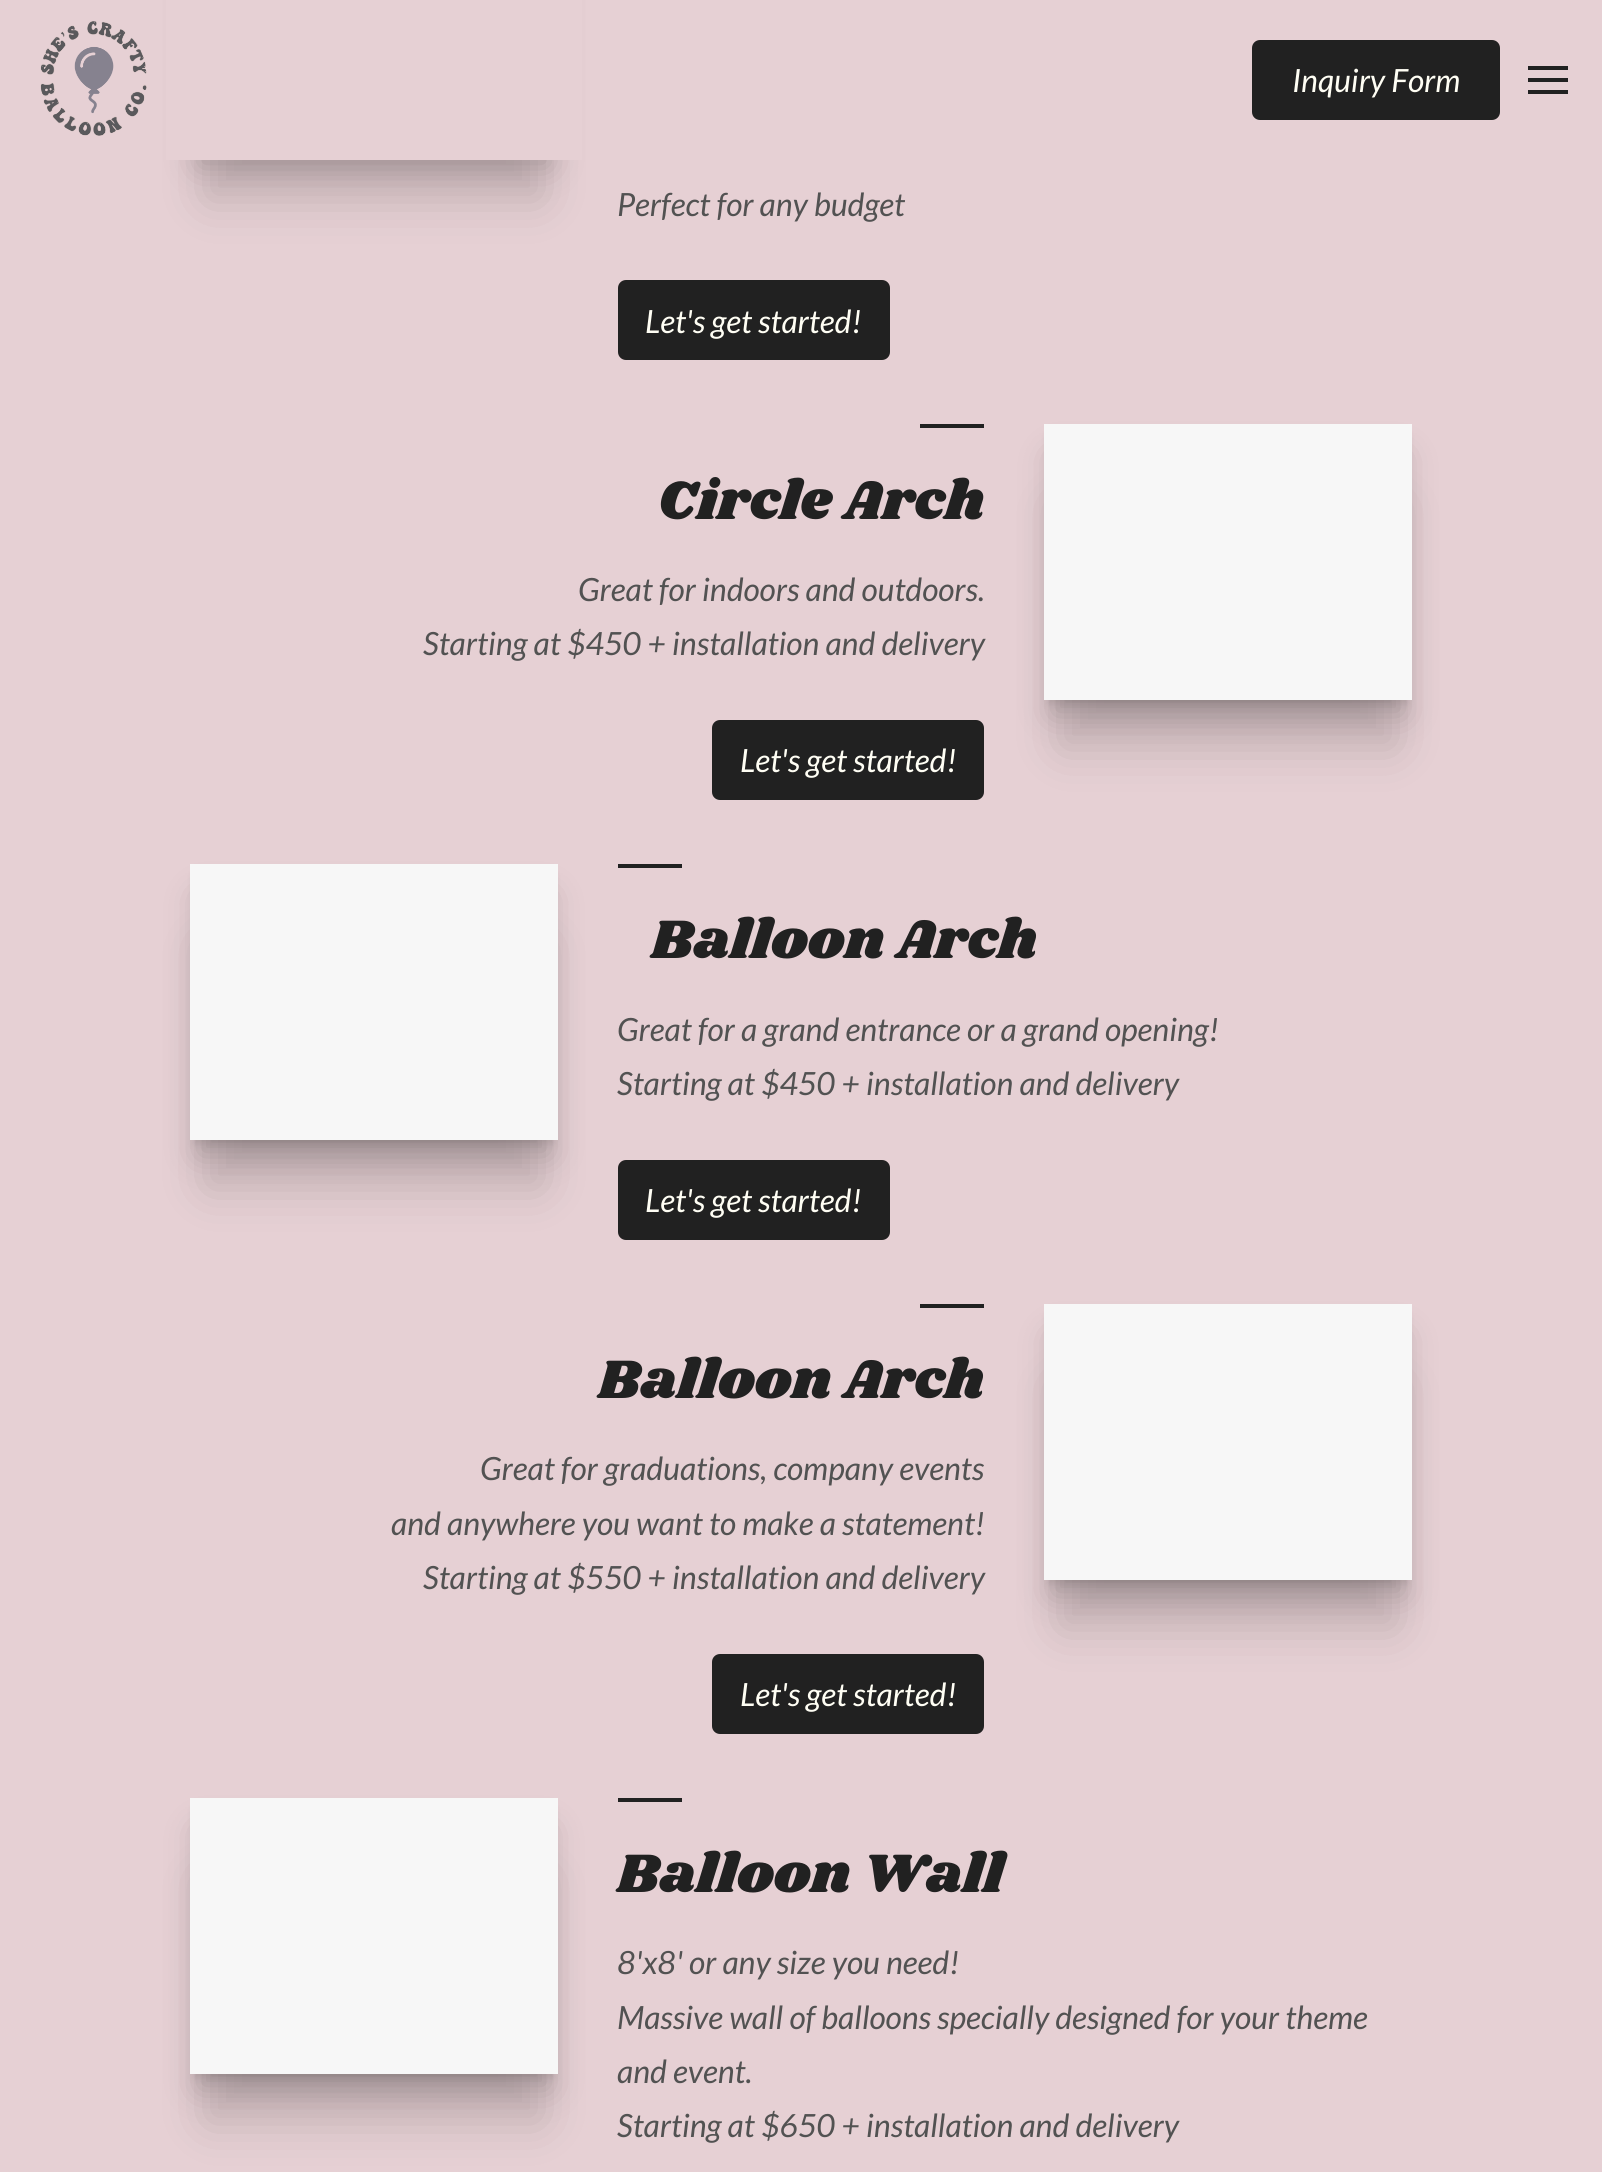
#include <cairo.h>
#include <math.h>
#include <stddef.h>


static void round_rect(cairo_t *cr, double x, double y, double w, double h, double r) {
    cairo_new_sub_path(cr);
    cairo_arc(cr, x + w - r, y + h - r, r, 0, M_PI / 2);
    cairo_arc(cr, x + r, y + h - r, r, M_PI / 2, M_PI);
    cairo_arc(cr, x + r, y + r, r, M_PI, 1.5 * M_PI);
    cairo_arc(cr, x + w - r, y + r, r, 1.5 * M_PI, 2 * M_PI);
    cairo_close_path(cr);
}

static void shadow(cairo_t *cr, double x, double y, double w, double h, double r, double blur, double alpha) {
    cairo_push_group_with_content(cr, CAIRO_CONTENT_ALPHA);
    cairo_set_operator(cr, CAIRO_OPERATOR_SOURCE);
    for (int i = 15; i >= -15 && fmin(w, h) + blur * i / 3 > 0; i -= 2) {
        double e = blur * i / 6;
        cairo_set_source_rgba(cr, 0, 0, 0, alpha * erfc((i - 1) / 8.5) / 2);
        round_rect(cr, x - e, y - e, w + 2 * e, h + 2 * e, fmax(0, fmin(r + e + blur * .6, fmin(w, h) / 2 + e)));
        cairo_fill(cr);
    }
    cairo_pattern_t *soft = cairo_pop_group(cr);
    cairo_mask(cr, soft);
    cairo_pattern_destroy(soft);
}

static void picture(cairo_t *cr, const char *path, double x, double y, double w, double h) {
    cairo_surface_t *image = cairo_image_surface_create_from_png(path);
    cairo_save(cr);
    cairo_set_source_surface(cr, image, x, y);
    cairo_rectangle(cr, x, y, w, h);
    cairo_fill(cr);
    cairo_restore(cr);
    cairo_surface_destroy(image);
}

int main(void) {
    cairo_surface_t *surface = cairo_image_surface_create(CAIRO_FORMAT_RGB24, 1602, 2172);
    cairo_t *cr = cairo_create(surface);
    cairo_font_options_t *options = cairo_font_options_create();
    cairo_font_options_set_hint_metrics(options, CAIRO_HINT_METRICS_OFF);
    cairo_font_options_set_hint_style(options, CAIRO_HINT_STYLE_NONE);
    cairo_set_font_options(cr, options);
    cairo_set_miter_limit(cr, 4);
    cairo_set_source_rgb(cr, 0.902, 0.816, 0.831);
    cairo_paint(cr);
    cairo_set_source_rgb(cr, 0, 0, 0);
    shadow(cr, 198, -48, 352, 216, 0, 16, 0.2);
    shadow(cr, 206, -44, 336, 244, 0, 24, 0.15);
    cairo_set_source_rgb(cr, 0.902, 0.816, 0.831);
    cairo_rectangle(cr, 166, 0, 416, 160);
    cairo_fill(cr);
    picture(cr, "img1.png", 40, 21, 107, 115);
    cairo_set_source_rgb(cr, 0.129, 0.129, 0.129);
    round_rect(cr, 1252, 40, 248, 80, 8);
    cairo_fill(cr);
    cairo_select_font_face(cr, "Lato", CAIRO_FONT_SLANT_ITALIC, CAIRO_FONT_WEIGHT_NORMAL);
    cairo_set_font_size(cr, 32);
    cairo_set_source_rgb(cr, 1, 0.996, 0.957);
    cairo_move_to(cr, 1292, 92);
    cairo_show_text(cr, "Inquiry Form");
    cairo_set_source_rgb(cr, 0.129, 0.129, 0.129);
    cairo_rectangle(cr, 1528, 66, 40, 4);
    cairo_fill(cr);
    cairo_rectangle(cr, 1528, 78, 40, 4);
    cairo_fill(cr);
    cairo_rectangle(cr, 1528, 90, 40, 4);
    cairo_fill(cr);
    cairo_set_source_rgb(cr, 0.322, 0.322, 0.322);
    cairo_move_to(cr, 617, 216);
    cairo_show_text(cr, "Perfect for any budget");
    cairo_set_source_rgb(cr, 0.129, 0.129, 0.129);
    round_rect(cr, 618, 280, 272, 80, 8);
    cairo_fill(cr);
    cairo_set_source_rgb(cr, 1, 0.996, 0.957);
    cairo_move_to(cr, 645, 333);
    cairo_show_text(cr, "Let's get started!");
    cairo_set_source_rgb(cr, 0.129, 0.129, 0.129);
    cairo_rectangle(cr, 920, 424, 64, 4);
    cairo_fill(cr);
    cairo_select_font_face(cr, "Shrikhand", CAIRO_FONT_SLANT_NORMAL, CAIRO_FONT_WEIGHT_NORMAL);
    cairo_set_font_size(cr, 56);
    cairo_move_to(cr, 658, 519);
    cairo_show_text(cr, "Circle Arch");
    cairo_select_font_face(cr, "Lato", CAIRO_FONT_SLANT_ITALIC, CAIRO_FONT_WEIGHT_NORMAL);
    cairo_set_font_size(cr, 32);
    cairo_set_source_rgb(cr, 0.322, 0.322, 0.322);
    cairo_move_to(cr, 578, 601);
    cairo_show_text(cr, "Great for indoors and outdoors.");
    cairo_move_to(cr, 423, 655);
    cairo_show_text(cr, "Starting at $450 + installation and delivery");
    cairo_set_source_rgb(cr, 0.129, 0.129, 0.129);
    round_rect(cr, 712, 720, 272, 80, 8);
    cairo_fill(cr);
    cairo_set_source_rgb(cr, 1, 0.996, 0.957);
    cairo_move_to(cr, 740, 772);
    cairo_show_text(cr, "Let's get started!");
    cairo_set_source_rgb(cr, 0, 0, 0);
    shadow(cr, 1048, 436, 360, 268, 0, 4, 0.1);
    shadow(cr, 1052, 456, 352, 260, 0, 16, 0.2);
    shadow(cr, 1060, 504, 336, 244, 0, 24, 0.15);
    cairo_set_source_rgb(cr, 0.965, 0.965, 0.965);
    cairo_rectangle(cr, 1044, 424, 368, 276);
    cairo_fill(cr);
    cairo_set_source_rgb(cr, 0, 0, 0);
    shadow(cr, 194, 876, 360, 268, 0, 4, 0.1);
    shadow(cr, 198, 896, 352, 260, 0, 16, 0.2);
    shadow(cr, 206, 944, 336, 244, 0, 24, 0.15);
    cairo_set_source_rgb(cr, 0.965, 0.965, 0.965);
    cairo_rectangle(cr, 190, 864, 368, 276);
    cairo_fill(cr);
    cairo_set_source_rgb(cr, 0.129, 0.129, 0.129);
    cairo_rectangle(cr, 618, 864, 64, 4);
    cairo_fill(cr);
    cairo_select_font_face(cr, "Shrikhand", CAIRO_FONT_SLANT_NORMAL, CAIRO_FONT_WEIGHT_NORMAL);
    cairo_set_font_size(cr, 56);
    cairo_move_to(cr, 651, 958);
    cairo_show_text(cr, "Balloon Arch");
    cairo_select_font_face(cr, "Lato", CAIRO_FONT_SLANT_ITALIC, CAIRO_FONT_WEIGHT_NORMAL);
    cairo_set_font_size(cr, 32);
    cairo_set_source_rgb(cr, 0.322, 0.322, 0.322);
    cairo_move_to(cr, 617, 1041);
    cairo_show_text(cr, "Great for a grand entrance or a grand opening!");
    cairo_move_to(cr, 617, 1095);
    cairo_show_text(cr, "Starting at $450 + installation and delivery");
    cairo_set_source_rgb(cr, 0.129, 0.129, 0.129);
    round_rect(cr, 618, 1160, 272, 80, 8);
    cairo_fill(cr);
    cairo_set_source_rgb(cr, 1, 0.996, 0.957);
    cairo_move_to(cr, 645, 1212);
    cairo_show_text(cr, "Let's get started!");
    cairo_set_source_rgb(cr, 0.129, 0.129, 0.129);
    cairo_rectangle(cr, 920, 1304, 64, 4);
    cairo_fill(cr);
    cairo_select_font_face(cr, "Shrikhand", CAIRO_FONT_SLANT_NORMAL, CAIRO_FONT_WEIGHT_NORMAL);
    cairo_set_font_size(cr, 56);
    cairo_move_to(cr, 598, 1398);
    cairo_show_text(cr, "Balloon Arch");
    cairo_select_font_face(cr, "Lato", CAIRO_FONT_SLANT_ITALIC, CAIRO_FONT_WEIGHT_NORMAL);
    cairo_set_font_size(cr, 32);
    cairo_set_source_rgb(cr, 0.322, 0.322, 0.322);
    cairo_move_to(cr, 480, 1480);
    cairo_show_text(cr, "Great for graduations, company events");
    cairo_move_to(cr, 391, 1535);
    cairo_show_text(cr, "and anywhere you want to make a statement!");
    cairo_move_to(cr, 423, 1589);
    cairo_show_text(cr, "Starting at $550 + installation and delivery");
    cairo_set_source_rgb(cr, 0.129, 0.129, 0.129);
    round_rect(cr, 712, 1654, 272, 80, 8);
    cairo_fill(cr);
    cairo_set_source_rgb(cr, 1, 0.996, 0.957);
    cairo_move_to(cr, 740, 1706);
    cairo_show_text(cr, "Let's get started!");
    cairo_set_source_rgb(cr, 0, 0, 0);
    shadow(cr, 1048, 1316, 360, 268, 0, 4, 0.1);
    shadow(cr, 1052, 1336, 352, 260, 0, 16, 0.2);
    shadow(cr, 1060, 1384, 336, 244, 0, 24, 0.15);
    cairo_set_source_rgb(cr, 0.965, 0.965, 0.965);
    cairo_rectangle(cr, 1044, 1304, 368, 276);
    cairo_fill(cr);
    cairo_set_source_rgb(cr, 0, 0, 0);
    shadow(cr, 194, 1810, 360, 268, 0, 4, 0.1);
    shadow(cr, 198, 1830, 352, 260, 0, 16, 0.2);
    shadow(cr, 206, 1878, 336, 244, 0, 24, 0.15);
    cairo_set_source_rgb(cr, 0.965, 0.965, 0.965);
    cairo_rectangle(cr, 190, 1798, 368, 276);
    cairo_fill(cr);
    cairo_set_source_rgb(cr, 0.129, 0.129, 0.129);
    cairo_rectangle(cr, 618, 1798, 64, 4);
    cairo_fill(cr);
    cairo_select_font_face(cr, "Shrikhand", CAIRO_FONT_SLANT_NORMAL, CAIRO_FONT_WEIGHT_NORMAL);
    cairo_set_font_size(cr, 56);
    cairo_move_to(cr, 617, 1892);
    cairo_show_text(cr, "Balloon Wall");
    cairo_select_font_face(cr, "Lato", CAIRO_FONT_SLANT_ITALIC, CAIRO_FONT_WEIGHT_NORMAL);
    cairo_set_font_size(cr, 32);
    cairo_set_source_rgb(cr, 0.322, 0.322, 0.322);
    cairo_move_to(cr, 617, 1974);
    cairo_show_text(cr, "8'x8' or any size you need!");
    cairo_move_to(cr, 617, 2029);
    cairo_show_text(cr, "Massive wall of balloons specially designed for your theme");
    cairo_move_to(cr, 617, 2083);
    cairo_show_text(cr, "and event.");
    cairo_move_to(cr, 617, 2137);
    cairo_show_text(cr, "Starting at $650 + installation and delivery");
    cairo_surface_write_to_png(surface, "page.png");
    cairo_font_options_destroy(options);
    cairo_destroy(cr);
    cairo_surface_destroy(surface);
    return 0;
}
